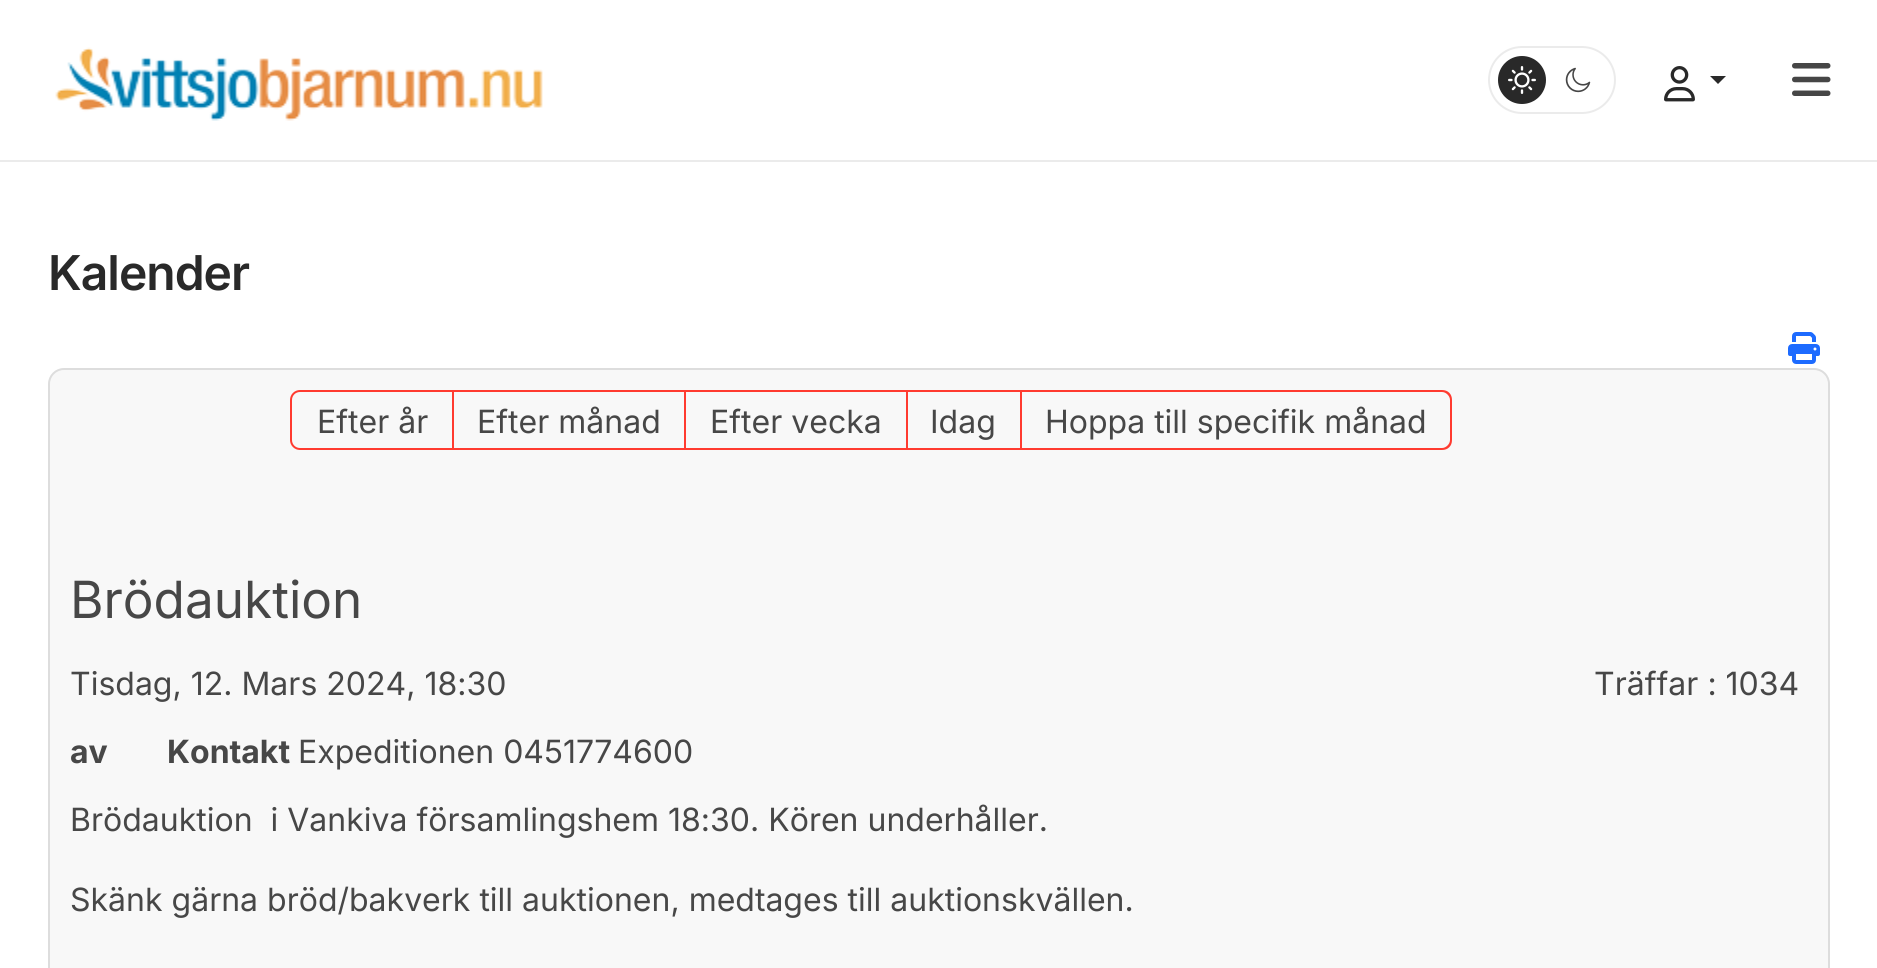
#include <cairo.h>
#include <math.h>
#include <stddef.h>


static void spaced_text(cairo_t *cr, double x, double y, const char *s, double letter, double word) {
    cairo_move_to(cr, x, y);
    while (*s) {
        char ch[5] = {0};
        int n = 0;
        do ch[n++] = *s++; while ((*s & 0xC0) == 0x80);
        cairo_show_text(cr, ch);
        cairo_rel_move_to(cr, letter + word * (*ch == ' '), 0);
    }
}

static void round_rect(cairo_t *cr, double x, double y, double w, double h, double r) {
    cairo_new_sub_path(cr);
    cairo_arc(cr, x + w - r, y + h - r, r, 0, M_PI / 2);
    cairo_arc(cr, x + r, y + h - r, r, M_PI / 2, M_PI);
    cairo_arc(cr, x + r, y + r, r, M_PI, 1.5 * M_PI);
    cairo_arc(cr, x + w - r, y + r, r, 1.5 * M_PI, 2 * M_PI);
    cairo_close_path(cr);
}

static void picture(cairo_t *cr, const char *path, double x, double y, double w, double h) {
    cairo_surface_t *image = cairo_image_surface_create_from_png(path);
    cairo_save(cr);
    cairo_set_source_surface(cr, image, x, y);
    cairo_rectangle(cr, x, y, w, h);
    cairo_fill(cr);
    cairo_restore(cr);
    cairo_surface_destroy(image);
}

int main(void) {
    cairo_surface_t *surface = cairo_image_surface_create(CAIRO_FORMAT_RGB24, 1877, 968);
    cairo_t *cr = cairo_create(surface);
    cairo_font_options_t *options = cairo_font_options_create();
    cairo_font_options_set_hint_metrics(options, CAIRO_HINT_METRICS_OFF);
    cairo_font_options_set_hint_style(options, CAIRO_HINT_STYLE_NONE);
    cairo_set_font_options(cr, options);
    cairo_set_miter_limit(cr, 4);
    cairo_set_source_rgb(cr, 1, 1, 1);
    cairo_paint(cr);
    cairo_set_source_rgb(cr, 0.918, 0.918, 0.918);
    cairo_rectangle(cr, 0, 160, 1877, 2);
    cairo_fill(cr);
    picture(cr, "img1.png", 55, 47, 488, 74);
    round_rect(cr, 1489, 47, 126, 66, 33);
    cairo_stroke(cr);
    cairo_set_source_rgb(cr, 0.161, 0.161, 0.161);
    cairo_arc(cr, 1522, 80, 24, 0, 2 * M_PI);
    cairo_fill(cr);
    picture(cr, "img2.png", 1508, 66, 28, 28);
    picture(cr, "img3.png", 1565, 67, 26, 26);
    picture(cr, "img4.png", 1664, 66, 31, 36);
    cairo_new_path(cr);
    cairo_move_to(cr, 1710, 76);
    cairo_line_to(cr, 1726, 76);
    cairo_line_to(cr, 1718, 84);
    cairo_close_path(cr);
    cairo_fill(cr);
    picture(cr, "img5.png", 1792, 63, 39, 33);
    cairo_select_font_face(cr, "Inter SemiBold", CAIRO_FONT_SLANT_NORMAL, CAIRO_FONT_WEIGHT_NORMAL);
    cairo_set_font_size(cr, 48);
    spaced_text(cr, 48, 290, "Kalender", -1, 0);
    picture(cr, "img6.png", 1788, 332, 32, 32);
    cairo_set_source_rgb(cr, 0.969, 0.969, 0.969);
    round_rect(cr, 49, 369, 1780, 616, 15);
    cairo_fill_preserve(cr);
    cairo_set_source_rgb(cr, 0.867, 0.867, 0.867);
    cairo_stroke(cr);
    cairo_new_path(cr);
    cairo_move_to(cr, 300, 391);
    cairo_line_to(cr, 453, 391);
    cairo_line_to(cr, 453, 449);
    cairo_line_to(cr, 300, 449);
    cairo_curve_to(cr, 295, 449, 291, 445, 291, 440);
    cairo_line_to(cr, 291, 400);
    cairo_curve_to(cr, 291, 395, 295, 391, 300, 391);
    cairo_close_path(cr);
    cairo_set_source_rgb(cr, 1, 0.231, 0.188);
    cairo_stroke(cr);
    cairo_select_font_face(cr, "Inter", CAIRO_FONT_SLANT_NORMAL, CAIRO_FONT_WEIGHT_NORMAL);
    cairo_set_font_size(cr, 32);
    cairo_set_source_rgb(cr, 0.278, 0.278, 0.278);
    cairo_move_to(cr, 317, 433);
    cairo_show_text(cr, "Efter år");
    cairo_set_source_rgb(cr, 1, 0.231, 0.188);
    cairo_rectangle(cr, 452, 390, 456, 2);
    cairo_fill(cr);
    cairo_rectangle(cr, 684, 390, 2, 60);
    cairo_fill(cr);
    cairo_rectangle(cr, 452, 448, 234, 2);
    cairo_fill(cr);
    cairo_set_source_rgb(cr, 0.278, 0.278, 0.278);
    cairo_move_to(cr, 477, 433);
    cairo_show_text(cr, "Efter månad");
    cairo_set_source_rgb(cr, 1, 0.231, 0.188);
    cairo_rectangle(cr, 906, 390, 2, 60);
    cairo_fill(cr);
    cairo_rectangle(cr, 686, 448, 222, 2);
    cairo_fill(cr);
    cairo_set_source_rgb(cr, 0.278, 0.278, 0.278);
    cairo_move_to(cr, 710, 433);
    cairo_show_text(cr, "Efter vecka");
    cairo_set_source_rgb(cr, 1, 0.231, 0.188);
    cairo_rectangle(cr, 906, 390, 116, 2);
    cairo_fill(cr);
    cairo_rectangle(cr, 1020, 390, 2, 60);
    cairo_fill(cr);
    cairo_rectangle(cr, 906, 448, 116, 2);
    cairo_fill(cr);
    cairo_set_source_rgb(cr, 0.278, 0.278, 0.278);
    cairo_move_to(cr, 930, 433);
    cairo_show_text(cr, "Idag");
    cairo_set_source_rgb(cr, 1, 0.231, 0.188);
    cairo_set_fill_rule(cr, CAIRO_FILL_RULE_EVEN_ODD);
    cairo_new_path(cr);
    cairo_move_to(cr, 1022, 390);
    cairo_line_to(cr, 1442, 390);
    cairo_curve_to(cr, 1448, 390, 1452, 394, 1452, 400);
    cairo_line_to(cr, 1452, 440);
    cairo_curve_to(cr, 1452, 446, 1448, 450, 1442, 450);
    cairo_line_to(cr, 1022, 450);
    cairo_close_path(cr);
    cairo_move_to(cr, 1022, 392);
    cairo_line_to(cr, 1442, 392);
    cairo_curve_to(cr, 1446, 392, 1450, 396, 1450, 400);
    cairo_line_to(cr, 1450, 440);
    cairo_curve_to(cr, 1450, 444, 1446, 448, 1442, 448);
    cairo_line_to(cr, 1022, 448);
    cairo_close_path(cr);
    cairo_fill(cr);
    cairo_set_source_rgb(cr, 0.278, 0.278, 0.278);
    cairo_move_to(cr, 1045, 433);
    cairo_show_text(cr, "Hoppa till specifik månad");
    cairo_set_font_size(cr, 51.25);
    cairo_move_to(cr, 70, 618);
    cairo_show_text(cr, "Brödauktion");
    cairo_set_font_size(cr, 32);
    cairo_move_to(cr, 70, 695);
    cairo_show_text(cr, "Tisdag, 12. Mars 2024, 18:30");
    cairo_move_to(cr, 1594, 695);
    cairo_show_text(cr, "Träffar : 1034");
    cairo_select_font_face(cr, "Inter", CAIRO_FONT_SLANT_NORMAL, CAIRO_FONT_WEIGHT_BOLD);
    cairo_move_to(cr, 70, 763);
    cairo_show_text(cr, "av");
    cairo_move_to(cr, 167, 763);
    cairo_show_text(cr, "Kontakt");
    cairo_select_font_face(cr, "Inter", CAIRO_FONT_SLANT_NORMAL, CAIRO_FONT_WEIGHT_NORMAL);
    cairo_move_to(cr, 298, 763);
    cairo_show_text(cr, "Expeditionen 0451774600");
    cairo_move_to(cr, 70, 831);
    cairo_show_text(cr, "Brödauktion  i Vankiva församlingshem 18:30. Kören underhåller.");
    cairo_move_to(cr, 70, 911);
    cairo_show_text(cr, "Skänk gärna bröd/bakverk till auktionen, medtages till auktionskvällen.");
    cairo_surface_write_to_png(surface, "page.png");
    cairo_font_options_destroy(options);
    cairo_destroy(cr);
    cairo_surface_destroy(surface);
    return 0;
}
